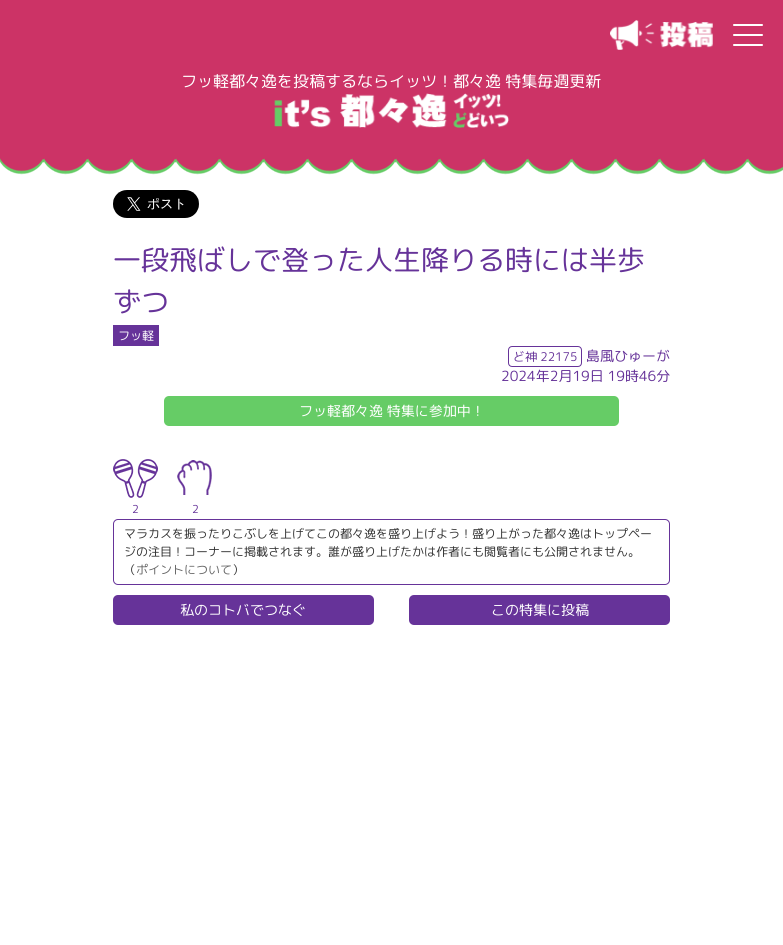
#include <cairo.h>
#include <math.h>
#include <stddef.h>


static void round_rect(cairo_t *cr, double x, double y, double w, double h, double r) {
    cairo_new_sub_path(cr);
    cairo_arc(cr, x + w - r, y + h - r, r, 0, M_PI / 2);
    cairo_arc(cr, x + r, y + h - r, r, M_PI / 2, M_PI);
    cairo_arc(cr, x + r, y + r, r, M_PI, 1.5 * M_PI);
    cairo_arc(cr, x + w - r, y + r, r, 1.5 * M_PI, 2 * M_PI);
    cairo_close_path(cr);
}

static void picture(cairo_t *cr, const char *path, double x, double y, double w, double h) {
    cairo_surface_t *image = cairo_image_surface_create_from_png(path);
    cairo_save(cr);
    cairo_set_source_surface(cr, image, x, y);
    cairo_rectangle(cr, x, y, w, h);
    cairo_fill(cr);
    cairo_restore(cr);
    cairo_surface_destroy(image);
}

int main(void) {
    cairo_surface_t *surface = cairo_image_surface_create(CAIRO_FORMAT_RGB24, 783, 945);
    cairo_t *cr = cairo_create(surface);
    cairo_font_options_t *options = cairo_font_options_create();
    cairo_font_options_set_hint_metrics(options, CAIRO_HINT_METRICS_OFF);
    cairo_font_options_set_hint_style(options, CAIRO_HINT_STYLE_NONE);
    cairo_set_font_options(cr, options);
    cairo_set_miter_limit(cr, 4);
    cairo_set_source_rgb(cr, 1, 1, 1);
    cairo_paint(cr);
    picture(cr, "img1.png", 0, 0, 783, 175);
    picture(cr, "img2.png", 610, 20, 103, 30);
    cairo_set_source_rgb(cr, 1, 1, 1);
    round_rect(cr, 733, 24, 30, 2, 1);
    cairo_fill(cr);
    round_rect(cr, 733, 34, 30, 2, 1);
    cairo_fill(cr);
    round_rect(cr, 733, 44, 30, 2, 1);
    cairo_fill(cr);
    cairo_select_font_face(cr, "Rounded Mplus 1c", CAIRO_FONT_SLANT_NORMAL, CAIRO_FONT_WEIGHT_NORMAL);
    cairo_set_font_size(cr, 16);
    cairo_move_to(cr, 181, 87);
    cairo_show_text(cr, "フッ軽都々逸を投稿するならイッツ！都々逸 特集毎週更新");
    picture(cr, "img3.png", 274, 93, 236, 35);
    picture(cr, "img4.png", 113, 190, 86, 28);
    cairo_set_font_size(cr, 28);
    cairo_set_source_rgb(cr, 0.4, 0.2, 0.6);
    cairo_move_to(cr, 113, 270);
    cairo_show_text(cr, "一段飛ばしで登った人生降りる時には半歩");
    cairo_move_to(cr, 113, 312);
    cairo_show_text(cr, "ずつ");
    cairo_rectangle(cr, 113, 325, 46, 21);
    cairo_fill(cr);
    cairo_set_font_size(cr, 12);
    cairo_set_source_rgb(cr, 1, 1, 1);
    cairo_move_to(cr, 118, 340);
    cairo_show_text(cr, "フッ軽");
    round_rect(cr, 508.5, 346.5, 73, 20, 3.5);
    cairo_set_source_rgb(cr, 0.4, 0.2, 0.6);
    cairo_set_line_width(cr, 1);
    cairo_stroke(cr);
    cairo_move_to(cr, 513, 361);
    cairo_show_text(cr, "ど神 22175");
    cairo_set_font_size(cr, 14);
    cairo_move_to(cr, 586, 361);
    cairo_show_text(cr, "島風ひゅーが");
    cairo_move_to(cr, 501, 381);
    cairo_show_text(cr, "2024年2月19日 19時46分");
    cairo_set_source_rgb(cr, 0.4, 0.8, 0.4);
    round_rect(cr, 164, 396, 455, 30, 5);
    cairo_fill(cr);
    cairo_set_source_rgb(cr, 1, 1, 1);
    cairo_move_to(cr, 299, 416);
    cairo_show_text(cr, "フッ軽都々逸 特集に参加中！");
    picture(cr, "img5.png", 113, 459, 45, 39);
    picture(cr, "img6.png", 177, 460, 35, 35);
    cairo_set_font_size(cr, 11);
    cairo_set_source_rgb(cr, 0.4, 0.2, 0.6);
    cairo_move_to(cr, 132, 513);
    cairo_show_text(cr, "2");
    cairo_move_to(cr, 192, 513);
    cairo_show_text(cr, "2");
    round_rect(cr, 113.5, 519.5, 556, 65, 4.5);
    cairo_stroke(cr);
    cairo_set_font_size(cr, 12);
    cairo_set_source_rgb(cr, 0.2, 0.2, 0.2);
    cairo_move_to(cr, 124, 538);
    cairo_show_text(cr, "マラカスを振ったりこぶしを上げてこの都々逸を盛り上げよう！盛り上がった都々逸はトップペー");
    cairo_move_to(cr, 124, 556);
    cairo_show_text(cr, "ジの注目！コーナーに掲載されます。誰が盛り上げたかは作者にも閲覧者にも公開されません。");
    cairo_move_to(cr, 124, 574);
    cairo_show_text(cr, "（");
    cairo_set_source_rgb(cr, 0.4, 0.4, 0.4);
    cairo_move_to(cr, 136, 574);
    cairo_show_text(cr, "ポイントについて");
    cairo_set_source_rgb(cr, 0.2, 0.2, 0.2);
    cairo_move_to(cr, 232, 574);
    cairo_show_text(cr, "）");
    cairo_set_source_rgb(cr, 0.4, 0.2, 0.6);
    round_rect(cr, 113, 595, 261, 30, 5);
    cairo_fill(cr);
    cairo_set_font_size(cr, 14);
    cairo_set_source_rgb(cr, 1, 1, 1);
    cairo_move_to(cr, 180, 615);
    cairo_show_text(cr, "私のコトバでつなぐ");
    cairo_set_source_rgb(cr, 0.4, 0.2, 0.6);
    round_rect(cr, 409, 595, 261, 30, 5);
    cairo_fill(cr);
    cairo_set_source_rgb(cr, 1, 1, 1);
    cairo_move_to(cr, 491, 615);
    cairo_show_text(cr, "この特集に投稿");
    cairo_surface_write_to_png(surface, "page.png");
    cairo_font_options_destroy(options);
    cairo_destroy(cr);
    cairo_surface_destroy(surface);
    return 0;
}
